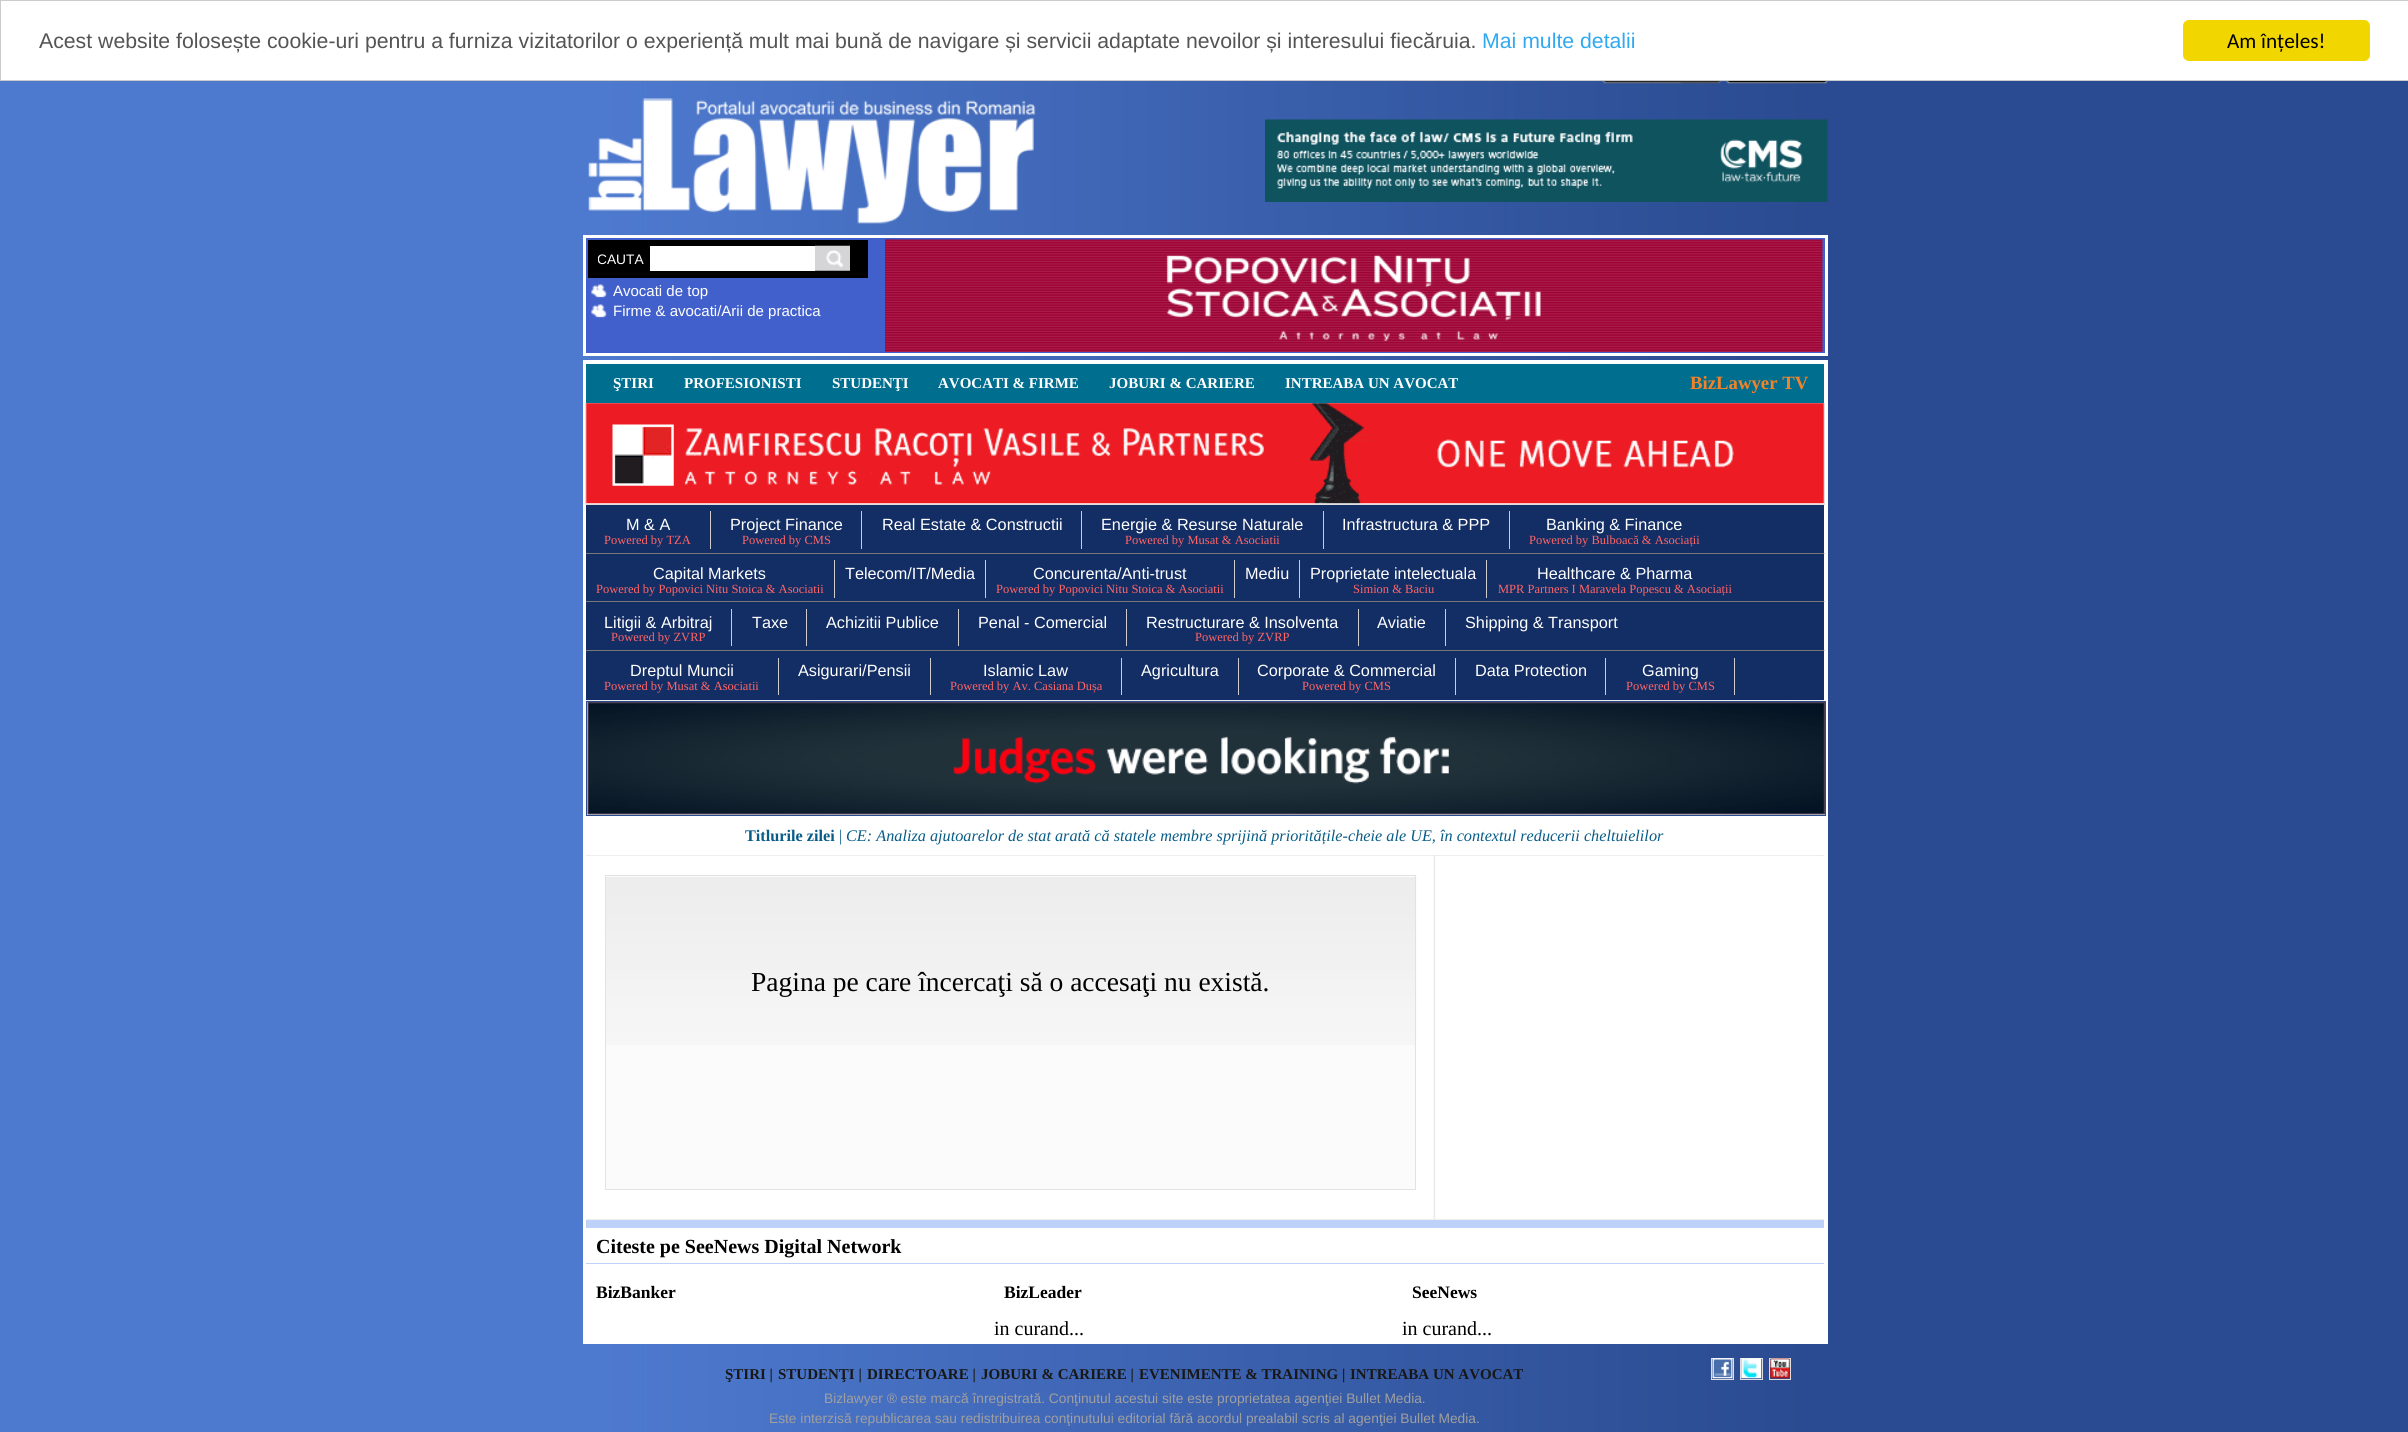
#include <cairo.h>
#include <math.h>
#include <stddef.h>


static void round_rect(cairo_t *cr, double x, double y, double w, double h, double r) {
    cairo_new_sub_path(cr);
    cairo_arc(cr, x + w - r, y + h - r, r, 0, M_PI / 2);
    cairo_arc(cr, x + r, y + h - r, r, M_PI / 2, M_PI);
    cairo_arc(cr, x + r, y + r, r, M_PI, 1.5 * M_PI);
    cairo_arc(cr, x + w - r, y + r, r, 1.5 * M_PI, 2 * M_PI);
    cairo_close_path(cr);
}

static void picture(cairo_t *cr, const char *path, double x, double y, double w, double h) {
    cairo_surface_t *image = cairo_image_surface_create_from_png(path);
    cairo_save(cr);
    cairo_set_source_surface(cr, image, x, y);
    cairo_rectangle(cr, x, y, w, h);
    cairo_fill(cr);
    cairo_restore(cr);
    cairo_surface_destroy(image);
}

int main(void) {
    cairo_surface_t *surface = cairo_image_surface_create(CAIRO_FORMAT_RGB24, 2408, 1432);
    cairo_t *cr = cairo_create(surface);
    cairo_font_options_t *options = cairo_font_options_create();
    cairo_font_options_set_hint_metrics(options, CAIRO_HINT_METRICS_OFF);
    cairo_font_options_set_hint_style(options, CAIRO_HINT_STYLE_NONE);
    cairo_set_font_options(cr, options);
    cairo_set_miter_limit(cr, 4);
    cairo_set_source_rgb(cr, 1, 1, 1);
    cairo_paint(cr);
    picture(cr, "img1.png", 0, 81, 2408, 1351);
    cairo_rectangle(cr, 0.5, 0.5, 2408, 80);
    cairo_set_source_rgb(cr, 0.8, 0.8, 0.8);
    cairo_set_line_width(cr, 1);
    cairo_stroke(cr);
    cairo_select_font_face(cr, "Liberation Sans", CAIRO_FONT_SLANT_NORMAL, CAIRO_FONT_WEIGHT_NORMAL);
    cairo_set_font_size(cr, 21.25);
    cairo_set_source_rgb(cr, 0.329, 0.329, 0.329);
    cairo_move_to(cr, 39, 48);
    cairo_show_text(cr, "Acest website folosește cookie-uri pentru a furniza vizitatorilor o experiență mult mai bună de navigare și servicii adaptate nevoilor și interesului fiecăruia.");
    cairo_set_source_rgb(cr, 0.192, 0.659, 0.941);
    cairo_move_to(cr, 1482, 48);
    cairo_show_text(cr, "Mai multe detalii");
    cairo_set_source_rgb(cr, 0.945, 0.839, 0);
    round_rect(cr, 2183, 20, 187, 41, 6);
    cairo_fill(cr);
    cairo_select_font_face(cr, "Carlito", CAIRO_FONT_SLANT_NORMAL, CAIRO_FONT_WEIGHT_NORMAL);
    cairo_set_source_rgb(cr, 0, 0, 0);
    cairo_move_to(cr, 2227, 48);
    cairo_show_text(cr, "Am înțeles!");
    picture(cr, "img2.png", 1602, 81, 120, 3);
    picture(cr, "img3.png", 1726, 81, 102, 3);
    picture(cr, "img4.png", 588, 98, 448, 126);
    picture(cr, "img5.png", 1265, 119, 563, 83);
    cairo_set_source_rgb(cr, 0.255, 0.376, 0.796);
    cairo_rectangle(cr, 584.5, 236.5, 1242, 118);
    cairo_fill_preserve(cr);
    cairo_set_source_rgb(cr, 1, 1, 1);
    cairo_set_line_width(cr, 3);
    cairo_stroke(cr);
    cairo_set_source_rgb(cr, 0, 0, 0);
    cairo_rectangle(cr, 588, 240, 280, 38);
    cairo_fill(cr);
    cairo_save(cr);
    cairo_rectangle(cr, 598, 246, 46, 25);
    cairo_clip(cr);
    cairo_select_font_face(cr, "Liberation Sans", CAIRO_FONT_SLANT_NORMAL, CAIRO_FONT_WEIGHT_NORMAL);
    cairo_set_font_size(cr, 13.75);
    cairo_set_source_rgb(cr, 1, 1, 1);
    cairo_move_to(cr, 597, 264);
    cairo_show_text(cr, "CAUTA");
    cairo_restore(cr);
    cairo_set_source_rgb(cr, 1, 1, 1);
    cairo_rectangle(cr, 650, 246, 165, 25);
    cairo_fill(cr);
    picture(cr, "img6.png", 815, 245, 35, 26);
    picture(cr, "img7.png", 591, 284, 16, 14);
    cairo_select_font_face(cr, "Liberation Sans", CAIRO_FONT_SLANT_NORMAL, CAIRO_FONT_WEIGHT_NORMAL);
    cairo_set_font_size(cr, 15);
    cairo_move_to(cr, 613, 296);
    cairo_show_text(cr, "Avocati de top");
    picture(cr, "img7.png", 591, 304, 16, 14);
    cairo_move_to(cr, 613, 316);
    cairo_show_text(cr, "Firme & avocati/Arii de practica");
    picture(cr, "img8.png", 885, 239, 938, 113);
    cairo_rectangle(cr, 583, 360, 1245, 984);
    cairo_fill(cr);
    cairo_set_source_rgb(cr, 0, 0.435, 0.561);
    cairo_rectangle(cr, 586, 364, 1238, 39);
    cairo_fill(cr);
    cairo_select_font_face(cr, "Liberation Serif", CAIRO_FONT_SLANT_NORMAL, CAIRO_FONT_WEIGHT_BOLD);
    cairo_set_source_rgb(cr, 1, 1, 1);
    cairo_move_to(cr, 613, 388);
    cairo_show_text(cr, "ŞTIRI");
    cairo_move_to(cr, 684, 388);
    cairo_show_text(cr, "PROFESIONISTI");
    cairo_move_to(cr, 832, 388);
    cairo_show_text(cr, "STUDENŢI");
    cairo_move_to(cr, 938, 388);
    cairo_show_text(cr, "AVOCATI & FIRME");
    cairo_move_to(cr, 1109, 388);
    cairo_show_text(cr, "JOBURI & CARIERE");
    cairo_move_to(cr, 1285, 388);
    cairo_show_text(cr, "INTREABA UN AVOCAT");
    cairo_set_font_size(cr, 18.75);
    cairo_set_source_rgb(cr, 0.957, 0.51, 0.157);
    cairo_move_to(cr, 1690, 389);
    cairo_show_text(cr, "BizLawyer TV");
    cairo_rectangle(cr, 585.5, 403.5, 1239, 101);
    cairo_set_source_rgb(cr, 0.871, 0.871, 0.871);
    cairo_set_line_width(cr, 1);
    cairo_stroke(cr);
    picture(cr, "img9.png", 586, 403, 1238, 101);
    cairo_set_source_rgb(cr, 0.078, 0.176, 0.396);
    cairo_rectangle(cr, 586, 505, 1238, 195);
    cairo_fill(cr);
    cairo_set_source_rgb(cr, 0.8, 0.8, 0.8);
    cairo_rectangle(cr, 710, 511, 1, 38);
    cairo_fill(cr);
    cairo_select_font_face(cr, "Liberation Sans", CAIRO_FONT_SLANT_NORMAL, CAIRO_FONT_WEIGHT_NORMAL);
    cairo_set_font_size(cr, 16.25);
    cairo_set_source_rgb(cr, 1, 1, 1);
    cairo_move_to(cr, 626, 530);
    cairo_show_text(cr, "M & A");
    cairo_select_font_face(cr, "Liberation Serif", CAIRO_FONT_SLANT_NORMAL, CAIRO_FONT_WEIGHT_NORMAL);
    cairo_set_font_size(cr, 12.5);
    cairo_set_source_rgb(cr, 1, 0.396, 0.396);
    cairo_move_to(cr, 604, 544);
    cairo_show_text(cr, "Powered by TZA");
    cairo_set_source_rgb(cr, 0.8, 0.8, 0.8);
    cairo_rectangle(cr, 861, 511, 1, 38);
    cairo_fill(cr);
    cairo_select_font_face(cr, "Liberation Sans", CAIRO_FONT_SLANT_NORMAL, CAIRO_FONT_WEIGHT_NORMAL);
    cairo_set_font_size(cr, 16.25);
    cairo_set_source_rgb(cr, 1, 1, 1);
    cairo_move_to(cr, 730, 530);
    cairo_show_text(cr, "Project Finance");
    cairo_select_font_face(cr, "Liberation Serif", CAIRO_FONT_SLANT_NORMAL, CAIRO_FONT_WEIGHT_NORMAL);
    cairo_set_font_size(cr, 12.5);
    cairo_set_source_rgb(cr, 1, 0.396, 0.396);
    cairo_move_to(cr, 742, 544);
    cairo_show_text(cr, "Powered by CMS");
    cairo_set_source_rgb(cr, 0.8, 0.8, 0.8);
    cairo_rectangle(cr, 1081, 511, 1, 38);
    cairo_fill(cr);
    cairo_select_font_face(cr, "Liberation Sans", CAIRO_FONT_SLANT_NORMAL, CAIRO_FONT_WEIGHT_NORMAL);
    cairo_set_font_size(cr, 16.25);
    cairo_set_source_rgb(cr, 1, 1, 1);
    cairo_move_to(cr, 882, 530);
    cairo_show_text(cr, "Real Estate & Constructii");
    cairo_set_source_rgb(cr, 0.8, 0.8, 0.8);
    cairo_rectangle(cr, 1323, 511, 1, 38);
    cairo_fill(cr);
    cairo_set_source_rgb(cr, 1, 1, 1);
    cairo_move_to(cr, 1101, 530);
    cairo_show_text(cr, "Energie & Resurse Naturale");
    cairo_select_font_face(cr, "Liberation Serif", CAIRO_FONT_SLANT_NORMAL, CAIRO_FONT_WEIGHT_NORMAL);
    cairo_set_font_size(cr, 12.5);
    cairo_set_source_rgb(cr, 1, 0.396, 0.396);
    cairo_move_to(cr, 1125, 544);
    cairo_show_text(cr, "Powered by Musat & Asociatii");
    cairo_set_source_rgb(cr, 0.8, 0.8, 0.8);
    cairo_rectangle(cr, 1509, 511, 1, 38);
    cairo_fill(cr);
    cairo_select_font_face(cr, "Liberation Sans", CAIRO_FONT_SLANT_NORMAL, CAIRO_FONT_WEIGHT_NORMAL);
    cairo_set_font_size(cr, 16.25);
    cairo_set_source_rgb(cr, 1, 1, 1);
    cairo_move_to(cr, 1342, 530);
    cairo_show_text(cr, "Infrastructura & PPP");
    cairo_move_to(cr, 1546, 530);
    cairo_show_text(cr, "Banking & Finance");
    cairo_select_font_face(cr, "Liberation Serif", CAIRO_FONT_SLANT_NORMAL, CAIRO_FONT_WEIGHT_NORMAL);
    cairo_set_font_size(cr, 12.5);
    cairo_set_source_rgb(cr, 1, 0.396, 0.396);
    cairo_move_to(cr, 1529, 544);
    cairo_show_text(cr, "Powered by Bulboacă & Asociații");
    cairo_set_source_rgb(cr, 0.467, 0.467, 0.467);
    cairo_rectangle(cr, 586, 553, 1239, 1);
    cairo_fill(cr);
    cairo_set_source_rgb(cr, 0.8, 0.8, 0.8);
    cairo_rectangle(cr, 1824, 553, 1, 1);
    cairo_fill(cr);
    cairo_rectangle(cr, 834, 560, 1, 38);
    cairo_fill(cr);
    cairo_select_font_face(cr, "Liberation Sans", CAIRO_FONT_SLANT_NORMAL, CAIRO_FONT_WEIGHT_NORMAL);
    cairo_set_font_size(cr, 16.25);
    cairo_set_source_rgb(cr, 1, 1, 1);
    cairo_move_to(cr, 653, 579);
    cairo_show_text(cr, "Capital Markets");
    cairo_select_font_face(cr, "Liberation Serif", CAIRO_FONT_SLANT_NORMAL, CAIRO_FONT_WEIGHT_NORMAL);
    cairo_set_font_size(cr, 12.5);
    cairo_set_source_rgb(cr, 1, 0.396, 0.396);
    cairo_move_to(cr, 596, 593);
    cairo_show_text(cr, "Powered by Popovici Nitu Stoica & Asociatii");
    cairo_set_source_rgb(cr, 0.8, 0.8, 0.8);
    cairo_rectangle(cr, 985, 560, 1, 38);
    cairo_fill(cr);
    cairo_select_font_face(cr, "Liberation Sans", CAIRO_FONT_SLANT_NORMAL, CAIRO_FONT_WEIGHT_NORMAL);
    cairo_set_font_size(cr, 16.25);
    cairo_set_source_rgb(cr, 1, 1, 1);
    cairo_move_to(cr, 845, 579);
    cairo_show_text(cr, "Telecom/IT/Media");
    cairo_set_source_rgb(cr, 0.8, 0.8, 0.8);
    cairo_rectangle(cr, 1234, 560, 1, 38);
    cairo_fill(cr);
    cairo_set_source_rgb(cr, 1, 1, 1);
    cairo_move_to(cr, 1033, 579);
    cairo_show_text(cr, "Concurenta/Anti-trust");
    cairo_select_font_face(cr, "Liberation Serif", CAIRO_FONT_SLANT_NORMAL, CAIRO_FONT_WEIGHT_NORMAL);
    cairo_set_font_size(cr, 12.5);
    cairo_set_source_rgb(cr, 1, 0.396, 0.396);
    cairo_move_to(cr, 996, 593);
    cairo_show_text(cr, "Powered by Popovici Nitu Stoica & Asociatii");
    cairo_set_source_rgb(cr, 0.8, 0.8, 0.8);
    cairo_rectangle(cr, 1299, 560, 1, 38);
    cairo_fill(cr);
    cairo_select_font_face(cr, "Liberation Sans", CAIRO_FONT_SLANT_NORMAL, CAIRO_FONT_WEIGHT_NORMAL);
    cairo_set_font_size(cr, 16.25);
    cairo_set_source_rgb(cr, 1, 1, 1);
    cairo_move_to(cr, 1245, 579);
    cairo_show_text(cr, "Mediu");
    cairo_set_source_rgb(cr, 0.8, 0.8, 0.8);
    cairo_rectangle(cr, 1486, 560, 1, 38);
    cairo_fill(cr);
    cairo_set_source_rgb(cr, 1, 1, 1);
    cairo_move_to(cr, 1310, 579);
    cairo_show_text(cr, "Proprietate intelectuala");
    cairo_select_font_face(cr, "Liberation Serif", CAIRO_FONT_SLANT_NORMAL, CAIRO_FONT_WEIGHT_NORMAL);
    cairo_set_font_size(cr, 12.5);
    cairo_set_source_rgb(cr, 1, 0.396, 0.396);
    cairo_move_to(cr, 1353, 593);
    cairo_show_text(cr, "Simion & Baciu");
    cairo_select_font_face(cr, "Liberation Sans", CAIRO_FONT_SLANT_NORMAL, CAIRO_FONT_WEIGHT_NORMAL);
    cairo_set_font_size(cr, 16.25);
    cairo_set_source_rgb(cr, 1, 1, 1);
    cairo_move_to(cr, 1537, 579);
    cairo_show_text(cr, "Healthcare & Pharma");
    cairo_select_font_face(cr, "Liberation Serif", CAIRO_FONT_SLANT_NORMAL, CAIRO_FONT_WEIGHT_NORMAL);
    cairo_set_font_size(cr, 12.5);
    cairo_set_source_rgb(cr, 1, 0.396, 0.396);
    cairo_move_to(cr, 1498, 593);
    cairo_show_text(cr, "MPR Partners I Maravela Popescu & Asociații");
    cairo_set_source_rgb(cr, 0.467, 0.467, 0.467);
    cairo_rectangle(cr, 586, 601, 1239, 1);
    cairo_fill(cr);
    cairo_set_source_rgb(cr, 0.8, 0.8, 0.8);
    cairo_rectangle(cr, 1824, 601, 1, 1);
    cairo_fill(cr);
    cairo_rectangle(cr, 731, 609, 1, 37);
    cairo_fill(cr);
    cairo_select_font_face(cr, "Liberation Sans", CAIRO_FONT_SLANT_NORMAL, CAIRO_FONT_WEIGHT_NORMAL);
    cairo_set_font_size(cr, 16.25);
    cairo_set_source_rgb(cr, 1, 1, 1);
    cairo_move_to(cr, 604, 628);
    cairo_show_text(cr, "Litigii & Arbitraj");
    cairo_select_font_face(cr, "Liberation Serif", CAIRO_FONT_SLANT_NORMAL, CAIRO_FONT_WEIGHT_NORMAL);
    cairo_set_font_size(cr, 12.5);
    cairo_set_source_rgb(cr, 1, 0.396, 0.396);
    cairo_move_to(cr, 611, 641);
    cairo_show_text(cr, "Powered by ZVRP");
    cairo_set_source_rgb(cr, 0.8, 0.8, 0.8);
    cairo_rectangle(cr, 806, 609, 1, 37);
    cairo_fill(cr);
    cairo_select_font_face(cr, "Liberation Sans", CAIRO_FONT_SLANT_NORMAL, CAIRO_FONT_WEIGHT_NORMAL);
    cairo_set_font_size(cr, 16.25);
    cairo_set_source_rgb(cr, 1, 1, 1);
    cairo_move_to(cr, 752, 628);
    cairo_show_text(cr, "Taxe");
    cairo_set_source_rgb(cr, 0.8, 0.8, 0.8);
    cairo_rectangle(cr, 958, 609, 1, 37);
    cairo_fill(cr);
    cairo_set_source_rgb(cr, 1, 1, 1);
    cairo_move_to(cr, 826, 628);
    cairo_show_text(cr, "Achizitii Publice");
    cairo_set_source_rgb(cr, 0.8, 0.8, 0.8);
    cairo_rectangle(cr, 1126, 609, 1, 37);
    cairo_fill(cr);
    cairo_set_source_rgb(cr, 1, 1, 1);
    cairo_move_to(cr, 978, 628);
    cairo_show_text(cr, "Penal - Comercial");
    cairo_set_source_rgb(cr, 0.8, 0.8, 0.8);
    cairo_rectangle(cr, 1358, 609, 1, 37);
    cairo_fill(cr);
    cairo_set_source_rgb(cr, 1, 1, 1);
    cairo_move_to(cr, 1146, 628);
    cairo_show_text(cr, "Restructurare & Insolventa");
    cairo_select_font_face(cr, "Liberation Serif", CAIRO_FONT_SLANT_NORMAL, CAIRO_FONT_WEIGHT_NORMAL);
    cairo_set_font_size(cr, 12.5);
    cairo_set_source_rgb(cr, 1, 0.396, 0.396);
    cairo_move_to(cr, 1195, 641);
    cairo_show_text(cr, "Powered by ZVRP");
    cairo_set_source_rgb(cr, 0.8, 0.8, 0.8);
    cairo_rectangle(cr, 1445, 609, 1, 37);
    cairo_fill(cr);
    cairo_select_font_face(cr, "Liberation Sans", CAIRO_FONT_SLANT_NORMAL, CAIRO_FONT_WEIGHT_NORMAL);
    cairo_set_font_size(cr, 16.25);
    cairo_set_source_rgb(cr, 1, 1, 1);
    cairo_move_to(cr, 1377, 628);
    cairo_show_text(cr, "Aviatie");
    cairo_move_to(cr, 1465, 628);
    cairo_show_text(cr, "Shipping & Transport");
    cairo_set_source_rgb(cr, 0.467, 0.467, 0.467);
    cairo_rectangle(cr, 586, 650, 1239, 1);
    cairo_fill(cr);
    cairo_set_source_rgb(cr, 0.8, 0.8, 0.8);
    cairo_rectangle(cr, 1824, 650, 1, 1);
    cairo_fill(cr);
    cairo_rectangle(cr, 778, 658, 1, 37);
    cairo_fill(cr);
    cairo_set_source_rgb(cr, 1, 1, 1);
    cairo_move_to(cr, 630, 676);
    cairo_show_text(cr, "Dreptul Muncii");
    cairo_select_font_face(cr, "Liberation Serif", CAIRO_FONT_SLANT_NORMAL, CAIRO_FONT_WEIGHT_NORMAL);
    cairo_set_font_size(cr, 12.5);
    cairo_set_source_rgb(cr, 1, 0.396, 0.396);
    cairo_move_to(cr, 604, 690);
    cairo_show_text(cr, "Powered by Musat & Asociatii");
    cairo_set_source_rgb(cr, 0.8, 0.8, 0.8);
    cairo_rectangle(cr, 930, 658, 1, 37);
    cairo_fill(cr);
    cairo_select_font_face(cr, "Liberation Sans", CAIRO_FONT_SLANT_NORMAL, CAIRO_FONT_WEIGHT_NORMAL);
    cairo_set_font_size(cr, 16.25);
    cairo_set_source_rgb(cr, 1, 1, 1);
    cairo_move_to(cr, 798, 676);
    cairo_show_text(cr, "Asigurari/Pensii");
    cairo_set_source_rgb(cr, 0.8, 0.8, 0.8);
    cairo_rectangle(cr, 1121, 658, 1, 37);
    cairo_fill(cr);
    cairo_set_source_rgb(cr, 1, 1, 1);
    cairo_move_to(cr, 983, 676);
    cairo_show_text(cr, "Islamic Law");
    cairo_select_font_face(cr, "Liberation Serif", CAIRO_FONT_SLANT_NORMAL, CAIRO_FONT_WEIGHT_NORMAL);
    cairo_set_font_size(cr, 12.5);
    cairo_set_source_rgb(cr, 1, 0.396, 0.396);
    cairo_move_to(cr, 950, 690);
    cairo_show_text(cr, "Powered by Av. Casiana Dușa");
    cairo_set_source_rgb(cr, 0.8, 0.8, 0.8);
    cairo_rectangle(cr, 1238, 658, 1, 37);
    cairo_fill(cr);
    cairo_select_font_face(cr, "Liberation Sans", CAIRO_FONT_SLANT_NORMAL, CAIRO_FONT_WEIGHT_NORMAL);
    cairo_set_font_size(cr, 16.25);
    cairo_set_source_rgb(cr, 1, 1, 1);
    cairo_move_to(cr, 1141, 676);
    cairo_show_text(cr, "Agricultura");
    cairo_set_source_rgb(cr, 0.8, 0.8, 0.8);
    cairo_rectangle(cr, 1455, 658, 1, 37);
    cairo_fill(cr);
    cairo_set_source_rgb(cr, 1, 1, 1);
    cairo_move_to(cr, 1257, 676);
    cairo_show_text(cr, "Corporate & Commercial");
    cairo_select_font_face(cr, "Liberation Serif", CAIRO_FONT_SLANT_NORMAL, CAIRO_FONT_WEIGHT_NORMAL);
    cairo_set_font_size(cr, 12.5);
    cairo_set_source_rgb(cr, 1, 0.396, 0.396);
    cairo_move_to(cr, 1302, 690);
    cairo_show_text(cr, "Powered by CMS");
    cairo_set_source_rgb(cr, 0.8, 0.8, 0.8);
    cairo_rectangle(cr, 1605, 658, 1, 37);
    cairo_fill(cr);
    cairo_select_font_face(cr, "Liberation Sans", CAIRO_FONT_SLANT_NORMAL, CAIRO_FONT_WEIGHT_NORMAL);
    cairo_set_font_size(cr, 16.25);
    cairo_set_source_rgb(cr, 1, 1, 1);
    cairo_move_to(cr, 1475, 676);
    cairo_show_text(cr, "Data Protection");
    cairo_set_source_rgb(cr, 0.8, 0.8, 0.8);
    cairo_rectangle(cr, 1734, 658, 1, 37);
    cairo_fill(cr);
    cairo_set_source_rgb(cr, 1, 1, 1);
    cairo_move_to(cr, 1642, 676);
    cairo_show_text(cr, "Gaming");
    cairo_select_font_face(cr, "Liberation Serif", CAIRO_FONT_SLANT_NORMAL, CAIRO_FONT_WEIGHT_NORMAL);
    cairo_set_font_size(cr, 12.5);
    cairo_set_source_rgb(cr, 1, 0.396, 0.396);
    cairo_move_to(cr, 1626, 690);
    cairo_show_text(cr, "Powered by CMS");
    cairo_set_source_rgb(cr, 0.91, 0.91, 0.91);
    cairo_rectangle(cr, 586, 700, 1238, 1);
    cairo_fill(cr);
    cairo_rectangle(cr, 586.5, 701.5, 1239, 114);
    cairo_set_source_rgb(cr, 0.165, 0.294, 0.573);
    cairo_stroke(cr);
    picture(cr, "img10.png", 587, 702, 1238, 113);
    cairo_select_font_face(cr, "Liberation Serif", CAIRO_FONT_SLANT_NORMAL, CAIRO_FONT_WEIGHT_BOLD);
    cairo_set_font_size(cr, 16.25);
    cairo_set_source_rgb(cr, 0.031, 0.361, 0.533);
    cairo_move_to(cr, 745, 841);
    cairo_show_text(cr, "Titlurile zilei");
    cairo_select_font_face(cr, "Liberation Serif", CAIRO_FONT_SLANT_NORMAL, CAIRO_FONT_WEIGHT_NORMAL);
    cairo_move_to(cr, 839, 841);
    cairo_show_text(cr, "|");
    cairo_select_font_face(cr, "Liberation Serif", CAIRO_FONT_SLANT_ITALIC, CAIRO_FONT_WEIGHT_NORMAL);
    cairo_move_to(cr, 846, 841);
    cairo_show_text(cr, "CE: Analiza ajutoarelor de stat arată că statele membre sprijină prioritățile-cheie ale UE, în contextul reducerii cheltuielilor");
    cairo_set_source_rgb(cr, 0.91, 0.91, 0.91);
    cairo_rectangle(cr, 586, 855, 1238, 1);
    cairo_fill(cr);
    picture(cr, "img11.png", 586, 855, 1238, 365);
    cairo_set_source_rgb(cr, 0.984, 0.984, 0.984);
    cairo_rectangle(cr, 606, 876, 809, 313);
    cairo_fill(cr);
    picture(cr, "img12.png", 606, 877, 811, 168);
    cairo_rectangle(cr, 605.5, 875.5, 810, 314);
    cairo_set_source_rgb(cr, 0.89, 0.886, 0.886);
    cairo_stroke(cr);
    cairo_select_font_face(cr, "Liberation Serif", CAIRO_FONT_SLANT_NORMAL, CAIRO_FONT_WEIGHT_NORMAL);
    cairo_set_font_size(cr, 27.5);
    cairo_set_source_rgb(cr, 0, 0, 0);
    cairo_move_to(cr, 751, 991);
    cairo_show_text(cr, "Pagina pe care încercaţi să o accesaţi nu există.");
    picture(cr, "img13.png", 586, 1219, 1238, 1);
    cairo_set_source_rgb(cr, 0.745, 0.82, 0.969);
    cairo_rectangle(cr, 586, 1220, 1238, 8);
    cairo_fill(cr);
    cairo_rectangle(cr, 586, 1263, 1238, 1);
    cairo_fill(cr);
    cairo_select_font_face(cr, "Liberation Serif", CAIRO_FONT_SLANT_NORMAL, CAIRO_FONT_WEIGHT_BOLD);
    cairo_set_font_size(cr, 20);
    cairo_set_source_rgb(cr, 0, 0, 0);
    cairo_move_to(cr, 596, 1253);
    cairo_show_text(cr, "Citeste pe SeeNews Digital Network");
    cairo_set_font_size(cr, 17.5);
    cairo_move_to(cr, 596, 1298);
    cairo_show_text(cr, "BizBanker");
    cairo_move_to(cr, 1004, 1298);
    cairo_show_text(cr, "BizLeader");
    cairo_select_font_face(cr, "Liberation Serif", CAIRO_FONT_SLANT_NORMAL, CAIRO_FONT_WEIGHT_NORMAL);
    cairo_set_font_size(cr, 20);
    cairo_move_to(cr, 994, 1335);
    cairo_show_text(cr, "in curand...");
    cairo_select_font_face(cr, "Liberation Serif", CAIRO_FONT_SLANT_NORMAL, CAIRO_FONT_WEIGHT_BOLD);
    cairo_set_font_size(cr, 17.5);
    cairo_move_to(cr, 1412, 1298);
    cairo_show_text(cr, "SeeNews");
    cairo_select_font_face(cr, "Liberation Serif", CAIRO_FONT_SLANT_NORMAL, CAIRO_FONT_WEIGHT_NORMAL);
    cairo_set_font_size(cr, 20);
    cairo_move_to(cr, 1402, 1335);
    cairo_show_text(cr, "in curand...");
    cairo_select_font_face(cr, "Liberation Serif", CAIRO_FONT_SLANT_NORMAL, CAIRO_FONT_WEIGHT_BOLD);
    cairo_set_font_size(cr, 15);
    cairo_set_source_rgb(cr, 0.09, 0.09, 0.09);
    cairo_move_to(cr, 725, 1379);
    cairo_show_text(cr, "ŞTIRI |");
    cairo_move_to(cr, 778, 1379);
    cairo_show_text(cr, "STUDENŢI |");
    cairo_move_to(cr, 867, 1379);
    cairo_show_text(cr, "DIRECTOARE |");
    cairo_move_to(cr, 981, 1379);
    cairo_show_text(cr, "JOBURI & CARIERE |");
    cairo_move_to(cr, 1139, 1379);
    cairo_show_text(cr, "EVENIMENTE & TRAINING |");
    cairo_move_to(cr, 1350, 1379);
    cairo_show_text(cr, "INTREABA UN AVOCAT");
    cairo_select_font_face(cr, "Liberation Sans", CAIRO_FONT_SLANT_NORMAL, CAIRO_FONT_WEIGHT_NORMAL);
    cairo_set_font_size(cr, 13.75);
    cairo_set_source_rgb(cr, 0.624, 0.624, 0.624);
    cairo_move_to(cr, 824, 1403);
    cairo_show_text(cr, "Bizlawyer ® este marcă înregistrată. Conţinutul acestui site este proprietatea agenţiei Bullet Media.");
    cairo_move_to(cr, 769, 1423);
    cairo_show_text(cr, "Este interzisă republicarea sau redistribuirea conţinutului editorial fără acordul prealabil scris al agenţiei Bullet Media.");
    cairo_rectangle(cr, 1711.5, 1358.5, 22, 21);
    cairo_set_source_rgb(cr, 0.871, 0.871, 0.871);
    cairo_stroke(cr);
    picture(cr, "img14.png", 1712, 1358, 21, 21);
    cairo_rectangle(cr, 1740.5, 1358.5, 22, 21);
    cairo_stroke(cr);
    picture(cr, "img15.png", 1741, 1358, 21, 21);
    cairo_rectangle(cr, 1769.5, 1358.5, 21, 21);
    cairo_stroke(cr);
    picture(cr, "img16.png", 1770, 1358, 20, 21);
    cairo_surface_write_to_png(surface, "page.png");
    cairo_font_options_destroy(options);
    cairo_destroy(cr);
    cairo_surface_destroy(surface);
    return 0;
}
